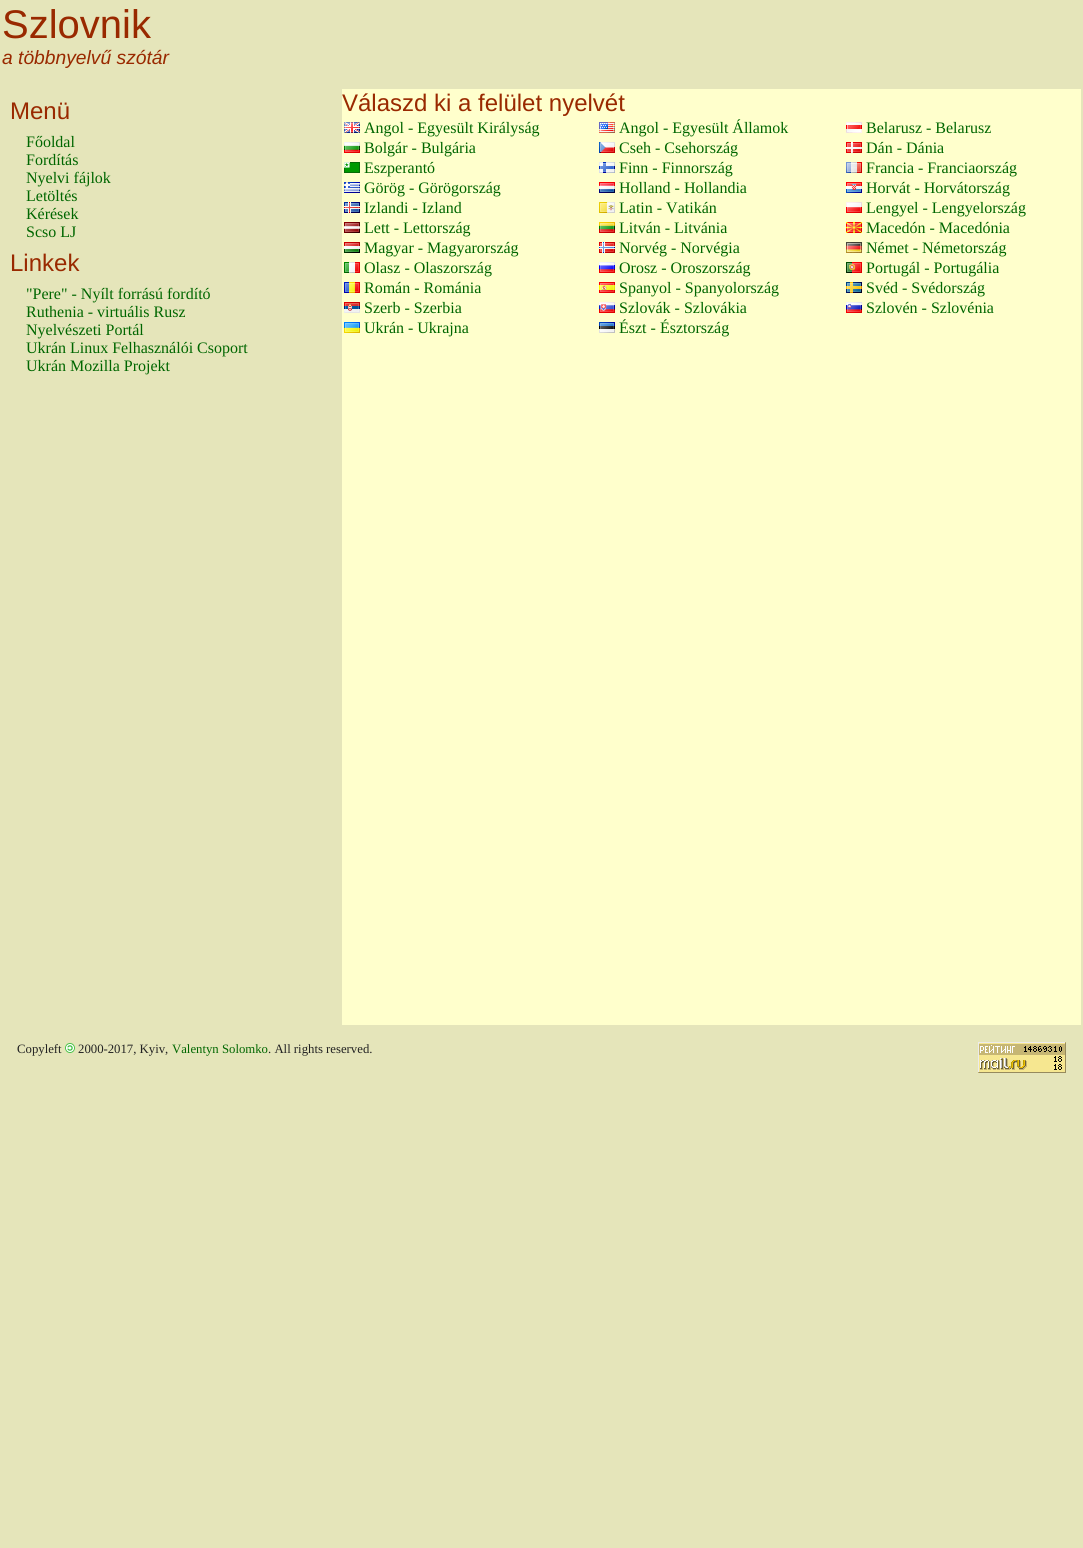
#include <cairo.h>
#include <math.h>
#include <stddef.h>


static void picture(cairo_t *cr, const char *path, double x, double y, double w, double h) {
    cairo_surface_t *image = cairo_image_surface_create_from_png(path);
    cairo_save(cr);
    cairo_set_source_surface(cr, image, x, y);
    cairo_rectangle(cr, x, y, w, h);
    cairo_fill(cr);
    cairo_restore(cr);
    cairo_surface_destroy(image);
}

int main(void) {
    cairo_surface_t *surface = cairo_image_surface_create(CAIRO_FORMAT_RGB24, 1083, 1548);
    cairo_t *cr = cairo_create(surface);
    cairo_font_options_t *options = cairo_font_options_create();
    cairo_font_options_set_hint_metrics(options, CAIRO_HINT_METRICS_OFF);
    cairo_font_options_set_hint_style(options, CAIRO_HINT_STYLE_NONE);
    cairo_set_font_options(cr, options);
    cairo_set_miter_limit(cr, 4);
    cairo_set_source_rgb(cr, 0.898, 0.898, 0.729);
    cairo_paint(cr);
    cairo_select_font_face(cr, "Liberation Sans", CAIRO_FONT_SLANT_NORMAL, CAIRO_FONT_WEIGHT_NORMAL);
    cairo_set_font_size(cr, 40);
    cairo_set_source_rgb(cr, 0.6, 0.161, 0);
    cairo_move_to(cr, 2, 38);
    cairo_show_text(cr, "Szlovnik");
    cairo_select_font_face(cr, "Liberation Sans", CAIRO_FONT_SLANT_ITALIC, CAIRO_FONT_WEIGHT_NORMAL);
    cairo_set_font_size(cr, 19.25);
    cairo_move_to(cr, 2, 64);
    cairo_show_text(cr, "a többnyelvű szótár");
    cairo_select_font_face(cr, "Liberation Sans", CAIRO_FONT_SLANT_NORMAL, CAIRO_FONT_WEIGHT_NORMAL);
    cairo_set_font_size(cr, 24);
    cairo_move_to(cr, 10, 119);
    cairo_show_text(cr, "Menü");
    cairo_select_font_face(cr, "Liberation Serif", CAIRO_FONT_SLANT_NORMAL, CAIRO_FONT_WEIGHT_NORMAL);
    cairo_set_font_size(cr, 16);
    cairo_set_source_rgb(cr, 0, 0.4, 0);
    cairo_move_to(cr, 26, 147);
    cairo_show_text(cr, "Főoldal");
    cairo_move_to(cr, 26, 165);
    cairo_show_text(cr, "Fordítás");
    cairo_move_to(cr, 26, 183);
    cairo_show_text(cr, "Nyelvi fájlok");
    cairo_move_to(cr, 26, 201);
    cairo_show_text(cr, "Letöltés");
    cairo_move_to(cr, 26, 219);
    cairo_show_text(cr, "Kérések");
    cairo_move_to(cr, 26, 237);
    cairo_show_text(cr, "Scso LJ");
    cairo_select_font_face(cr, "Liberation Sans", CAIRO_FONT_SLANT_NORMAL, CAIRO_FONT_WEIGHT_NORMAL);
    cairo_set_font_size(cr, 24);
    cairo_set_source_rgb(cr, 0.6, 0.161, 0);
    cairo_move_to(cr, 10, 271);
    cairo_show_text(cr, "Linkek");
    cairo_select_font_face(cr, "Liberation Serif", CAIRO_FONT_SLANT_NORMAL, CAIRO_FONT_WEIGHT_NORMAL);
    cairo_set_font_size(cr, 16);
    cairo_set_source_rgb(cr, 0, 0.4, 0);
    cairo_move_to(cr, 26, 299);
    cairo_show_text(cr, "\"Pere\" - Nyílt forrású fordító");
    cairo_move_to(cr, 26, 317);
    cairo_show_text(cr, "Ruthenia - virtuális Rusz");
    cairo_move_to(cr, 26, 335);
    cairo_show_text(cr, "Nyelvészeti Portál");
    cairo_move_to(cr, 26, 353);
    cairo_show_text(cr, "Ukrán Linux Felhasználói Csoport");
    cairo_move_to(cr, 26, 371);
    cairo_show_text(cr, "Ukrán Mozilla Projekt");
    cairo_set_source_rgb(cr, 1, 1, 0.8);
    cairo_rectangle(cr, 342, 89, 739, 936);
    cairo_fill(cr);
    cairo_select_font_face(cr, "Liberation Sans", CAIRO_FONT_SLANT_NORMAL, CAIRO_FONT_WEIGHT_NORMAL);
    cairo_set_font_size(cr, 24);
    cairo_set_source_rgb(cr, 0.6, 0.161, 0);
    cairo_move_to(cr, 342, 111);
    cairo_show_text(cr, "Válaszd ki a felület nyelvét");
    picture(cr, "img1.png", 344, 122, 16, 11);
    cairo_select_font_face(cr, "Liberation Serif", CAIRO_FONT_SLANT_NORMAL, CAIRO_FONT_WEIGHT_NORMAL);
    cairo_set_font_size(cr, 16);
    cairo_set_source_rgb(cr, 0, 0.4, 0);
    cairo_move_to(cr, 364, 133);
    cairo_show_text(cr, "Angol - Egyesült Királyság");
    picture(cr, "img2.png", 599, 122, 16, 11);
    cairo_move_to(cr, 619, 133);
    cairo_show_text(cr, "Angol - Egyesült Államok");
    picture(cr, "img3.png", 846, 122, 16, 11);
    cairo_move_to(cr, 866, 133);
    cairo_show_text(cr, "Belarusz - Belarusz");
    picture(cr, "img4.png", 344, 142, 16, 11);
    cairo_move_to(cr, 364, 153);
    cairo_show_text(cr, "Bolgár - Bulgária");
    picture(cr, "img5.png", 599, 142, 16, 11);
    cairo_move_to(cr, 619, 153);
    cairo_show_text(cr, "Cseh - Csehország");
    picture(cr, "img6.png", 846, 142, 16, 11);
    cairo_move_to(cr, 866, 153);
    cairo_show_text(cr, "Dán - Dánia");
    picture(cr, "img7.png", 344, 162, 16, 11);
    cairo_move_to(cr, 364, 173);
    cairo_show_text(cr, "Eszperantó");
    picture(cr, "img8.png", 599, 162, 16, 11);
    cairo_move_to(cr, 619, 173);
    cairo_show_text(cr, "Finn - Finnország");
    picture(cr, "img9.png", 846, 162, 16, 11);
    cairo_move_to(cr, 866, 173);
    cairo_show_text(cr, "Francia - Franciaország");
    picture(cr, "img10.png", 344, 182, 16, 11);
    cairo_move_to(cr, 364, 193);
    cairo_show_text(cr, "Görög - Görögország");
    picture(cr, "img11.png", 599, 182, 16, 11);
    cairo_move_to(cr, 619, 193);
    cairo_show_text(cr, "Holland - Hollandia");
    picture(cr, "img12.png", 846, 182, 16, 11);
    cairo_move_to(cr, 866, 193);
    cairo_show_text(cr, "Horvát - Horvátország");
    picture(cr, "img13.png", 344, 202, 16, 11);
    cairo_move_to(cr, 364, 213);
    cairo_show_text(cr, "Izlandi - Izland");
    picture(cr, "img14.png", 599, 202, 16, 11);
    cairo_move_to(cr, 619, 213);
    cairo_show_text(cr, "Latin - Vatikán");
    picture(cr, "img15.png", 846, 202, 16, 11);
    cairo_move_to(cr, 866, 213);
    cairo_show_text(cr, "Lengyel - Lengyelország");
    picture(cr, "img16.png", 344, 222, 16, 11);
    cairo_move_to(cr, 364, 233);
    cairo_show_text(cr, "Lett - Lettország");
    picture(cr, "img17.png", 599, 222, 16, 11);
    cairo_move_to(cr, 619, 233);
    cairo_show_text(cr, "Litván - Litvánia");
    picture(cr, "img18.png", 846, 222, 16, 11);
    cairo_move_to(cr, 866, 233);
    cairo_show_text(cr, "Macedón - Macedónia");
    picture(cr, "img19.png", 344, 242, 16, 11);
    cairo_move_to(cr, 364, 253);
    cairo_show_text(cr, "Magyar - Magyarország");
    picture(cr, "img20.png", 599, 242, 16, 11);
    cairo_move_to(cr, 619, 253);
    cairo_show_text(cr, "Norvég - Norvégia");
    picture(cr, "img21.png", 846, 242, 16, 11);
    cairo_move_to(cr, 866, 253);
    cairo_show_text(cr, "Német - Németország");
    picture(cr, "img22.png", 344, 262, 16, 11);
    cairo_move_to(cr, 364, 273);
    cairo_show_text(cr, "Olasz - Olaszország");
    picture(cr, "img23.png", 599, 262, 16, 11);
    cairo_move_to(cr, 619, 273);
    cairo_show_text(cr, "Orosz - Oroszország");
    picture(cr, "img24.png", 846, 262, 16, 11);
    cairo_move_to(cr, 866, 273);
    cairo_show_text(cr, "Portugál - Portugália");
    picture(cr, "img25.png", 344, 282, 16, 11);
    cairo_move_to(cr, 364, 293);
    cairo_show_text(cr, "Román - Románia");
    picture(cr, "img26.png", 599, 282, 16, 11);
    cairo_move_to(cr, 619, 293);
    cairo_show_text(cr, "Spanyol - Spanyolország");
    picture(cr, "img27.png", 846, 282, 16, 11);
    cairo_move_to(cr, 866, 293);
    cairo_show_text(cr, "Svéd - Svédország");
    picture(cr, "img28.png", 344, 302, 16, 11);
    cairo_move_to(cr, 364, 313);
    cairo_show_text(cr, "Szerb - Szerbia");
    picture(cr, "img29.png", 599, 302, 16, 11);
    cairo_move_to(cr, 619, 313);
    cairo_show_text(cr, "Szlovák - Szlovákia");
    picture(cr, "img30.png", 846, 302, 16, 11);
    cairo_move_to(cr, 866, 313);
    cairo_show_text(cr, "Szlovén - Szlovénia");
    picture(cr, "img31.png", 344, 322, 16, 11);
    cairo_move_to(cr, 364, 333);
    cairo_show_text(cr, "Ukrán - Ukrajna");
    picture(cr, "img32.png", 599, 322, 16, 11);
    cairo_move_to(cr, 619, 333);
    cairo_show_text(cr, "Észt - Észtország");
    cairo_set_font_size(cr, 12.75);
    cairo_set_source_rgb(cr, 0.133, 0.133, 0.133);
    cairo_move_to(cr, 17, 1053);
    cairo_show_text(cr, "Copyleft");
    picture(cr, "img33.png", 65, 1043, 10, 10);
    cairo_move_to(cr, 78, 1053);
    cairo_show_text(cr, "2000-2017, Kyiv,");
    cairo_set_source_rgb(cr, 0, 0.4, 0);
    cairo_move_to(cr, 172, 1053);
    cairo_show_text(cr, "Valentyn Solomko");
    cairo_set_source_rgb(cr, 0.133, 0.133, 0.133);
    cairo_move_to(cr, 268, 1053);
    cairo_show_text(cr, ". All rights reserved.");
    picture(cr, "img34.png", 978, 1042, 88, 31);
    cairo_surface_write_to_png(surface, "page.png");
    cairo_font_options_destroy(options);
    cairo_destroy(cr);
    cairo_surface_destroy(surface);
    return 0;
}
